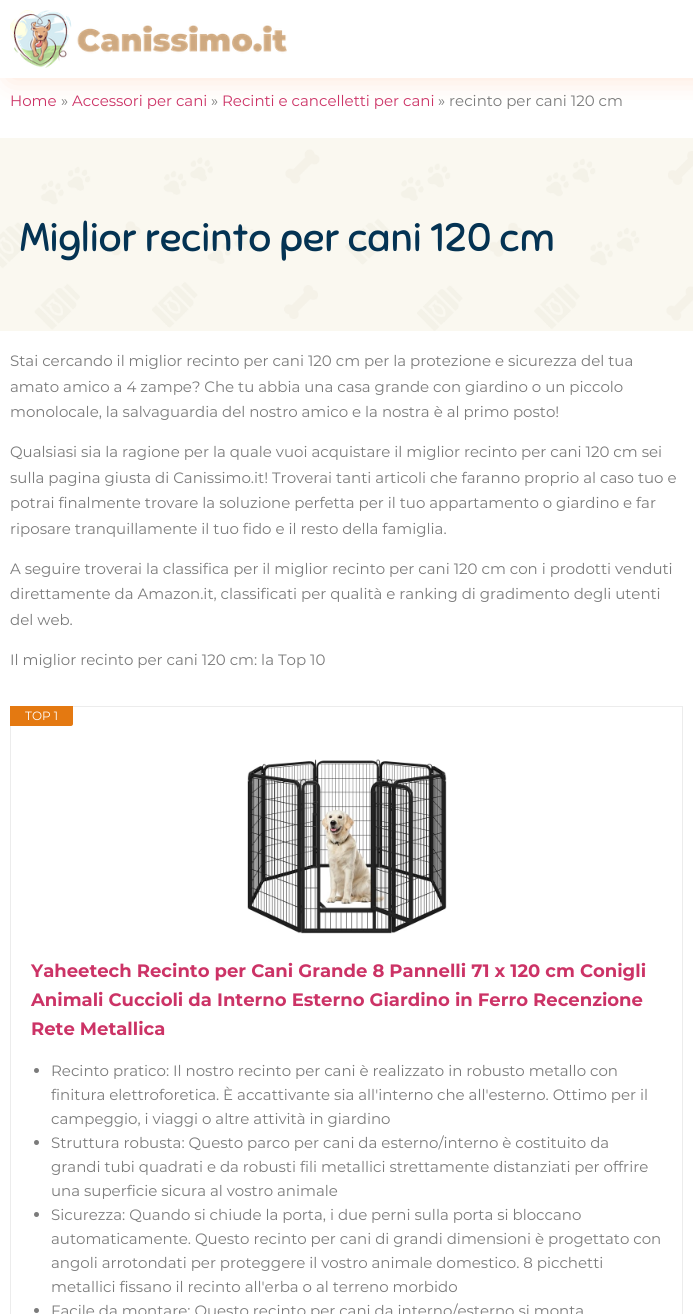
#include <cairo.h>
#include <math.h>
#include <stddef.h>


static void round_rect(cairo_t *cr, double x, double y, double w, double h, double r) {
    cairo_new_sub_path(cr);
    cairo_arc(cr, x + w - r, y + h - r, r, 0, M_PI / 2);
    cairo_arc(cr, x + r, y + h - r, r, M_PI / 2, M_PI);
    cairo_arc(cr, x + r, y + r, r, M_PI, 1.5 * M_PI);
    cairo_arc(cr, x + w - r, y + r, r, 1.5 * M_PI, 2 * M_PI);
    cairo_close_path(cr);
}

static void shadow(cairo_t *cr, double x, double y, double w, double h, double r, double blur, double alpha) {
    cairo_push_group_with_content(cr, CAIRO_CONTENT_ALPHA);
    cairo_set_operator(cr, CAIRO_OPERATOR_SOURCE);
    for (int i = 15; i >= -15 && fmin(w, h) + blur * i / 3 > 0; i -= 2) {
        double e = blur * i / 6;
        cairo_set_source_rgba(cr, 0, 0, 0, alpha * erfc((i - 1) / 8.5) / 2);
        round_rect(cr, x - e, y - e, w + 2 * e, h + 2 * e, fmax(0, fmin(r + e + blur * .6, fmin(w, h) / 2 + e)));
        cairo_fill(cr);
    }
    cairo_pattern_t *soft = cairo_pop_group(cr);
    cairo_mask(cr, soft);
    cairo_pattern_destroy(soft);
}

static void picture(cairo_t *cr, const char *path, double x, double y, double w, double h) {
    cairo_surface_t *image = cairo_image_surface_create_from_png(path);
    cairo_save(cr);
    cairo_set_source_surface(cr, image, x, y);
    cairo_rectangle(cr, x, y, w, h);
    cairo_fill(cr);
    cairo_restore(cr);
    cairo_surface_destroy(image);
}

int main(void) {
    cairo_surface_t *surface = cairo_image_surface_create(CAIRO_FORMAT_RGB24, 693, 1314);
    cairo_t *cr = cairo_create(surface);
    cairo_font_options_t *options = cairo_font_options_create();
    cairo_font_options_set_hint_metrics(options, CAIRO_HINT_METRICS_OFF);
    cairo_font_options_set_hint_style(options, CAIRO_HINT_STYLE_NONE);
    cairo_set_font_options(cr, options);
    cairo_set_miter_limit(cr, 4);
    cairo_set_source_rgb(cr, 1, 1, 1);
    cairo_paint(cr);
    cairo_save(cr);
    cairo_rectangle(cr, 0, 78, 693, 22);
    cairo_clip(cr);
    cairo_set_source_rgb(cr, 0.992, 0.584, 0.365);
    shadow(cr, 10, 0, 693, 78, 0, 15, 0.27);
    cairo_restore(cr);
    picture(cr, "img1.png", 10, 10, 277, 58);
    cairo_select_font_face(cr, "Montserrat", CAIRO_FONT_SLANT_NORMAL, CAIRO_FONT_WEIGHT_NORMAL);
    cairo_set_font_size(cr, 15);
    cairo_set_source_rgb(cr, 0.8, 0.2, 0.4);
    cairo_move_to(cr, 10, 106);
    cairo_show_text(cr, "Home");
    cairo_set_source_rgb(cr, 0.482, 0.482, 0.482);
    cairo_move_to(cr, 61, 106);
    cairo_show_text(cr, "»");
    cairo_set_source_rgb(cr, 0.8, 0.2, 0.4);
    cairo_move_to(cr, 72, 106);
    cairo_show_text(cr, "Accessori per cani");
    cairo_set_source_rgb(cr, 0.482, 0.482, 0.482);
    cairo_move_to(cr, 211, 106);
    cairo_show_text(cr, "»");
    cairo_set_source_rgb(cr, 0.8, 0.2, 0.4);
    cairo_move_to(cr, 222, 106);
    cairo_show_text(cr, "Recinti e cancelletti per cani");
    cairo_set_source_rgb(cr, 0.482, 0.482, 0.482);
    cairo_move_to(cr, 438, 106);
    cairo_show_text(cr, "» recinto per cani 120 cm");
    picture(cr, "img2.png", 0, 138, 693, 193);
    cairo_select_font_face(cr, "Sniglet", CAIRO_FONT_SLANT_NORMAL, CAIRO_FONT_WEIGHT_NORMAL);
    cairo_set_font_size(cr, 40);
    cairo_set_source_rgb(cr, 0.016, 0.2, 0.325);
    cairo_move_to(cr, 20, 251);
    cairo_show_text(cr, "Miglior recinto per cani 120 cm");
    cairo_select_font_face(cr, "Montserrat", CAIRO_FONT_SLANT_NORMAL, CAIRO_FONT_WEIGHT_NORMAL);
    cairo_set_font_size(cr, 15);
    cairo_set_source_rgb(cr, 0.482, 0.482, 0.482);
    cairo_move_to(cr, 10, 366);
    cairo_show_text(cr, "Stai cercando il miglior recinto per cani 120 cm per la protezione e sicurezza del tua");
    cairo_move_to(cr, 10, 392);
    cairo_show_text(cr, "amato amico a 4 zampe? Che tu abbia una casa grande con giardino o un piccolo");
    cairo_move_to(cr, 10, 417);
    cairo_show_text(cr, "monolocale, la salvaguardia del nostro amico e la nostra è al primo posto!");
    cairo_move_to(cr, 10, 457);
    cairo_show_text(cr, "Qualsiasi sia la ragione per la quale vuoi acquistare il miglior recinto per cani 120 cm sei");
    cairo_move_to(cr, 10, 483);
    cairo_show_text(cr, "sulla pagina giusta di Canissimo.it! Troverai tanti articoli che faranno proprio al caso tuo e");
    cairo_move_to(cr, 10, 508);
    cairo_show_text(cr, "potrai finalmente trovare la soluzione perfetta per il tuo appartamento o giardino e far");
    cairo_move_to(cr, 10, 534);
    cairo_show_text(cr, "riposare tranquillamente il tuo fido e il resto della famiglia.");
    cairo_move_to(cr, 10, 574);
    cairo_show_text(cr, "A seguire troverai la classifica per il miglior recinto per cani 120 cm con i prodotti venduti");
    cairo_move_to(cr, 10, 599);
    cairo_show_text(cr, "direttamente da Amazon.it, classificati per qualità e ranking di gradimento degli utenti");
    cairo_move_to(cr, 10, 625);
    cairo_show_text(cr, "del web.");
    cairo_move_to(cr, 10, 665);
    cairo_show_text(cr, "Il miglior recinto per cani 120 cm: la Top 10");
    cairo_rectangle(cr, 10.5, 706.5, 672, 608);
    cairo_set_source_rgb(cr, 0.925, 0.925, 0.925);
    cairo_set_line_width(cr, 1);
    cairo_stroke(cr);
    cairo_set_source_rgb(cr, 0.894, 0.475, 0.067);
    cairo_new_path(cr);
    cairo_move_to(cr, 10, 706);
    cairo_line_to(cr, 73, 706);
    cairo_line_to(cr, 73, 724);
    cairo_curve_to(cr, 73, 725, 72, 726, 71, 726);
    cairo_line_to(cr, 10, 726);
    cairo_close_path(cr);
    cairo_fill(cr);
    cairo_set_font_size(cr, 12);
    cairo_set_source_rgb(cr, 1, 1, 1);
    cairo_move_to(cr, 25, 720);
    cairo_show_text(cr, "TOP 1");
    picture(cr, "img3.png", 247, 759, 200, 175);
    cairo_select_font_face(cr, "Montserrat", CAIRO_FONT_SLANT_NORMAL, CAIRO_FONT_WEIGHT_BOLD);
    cairo_set_font_size(cr, 18);
    cairo_set_source_rgb(cr, 0.8, 0.2, 0.4);
    cairo_move_to(cr, 31, 977);
    cairo_show_text(cr, "Yaheetech Recinto per Cani Grande 8 Pannelli 71 x 120 cm Conigli");
    cairo_move_to(cr, 31, 1006);
    cairo_show_text(cr, "Animali Cuccioli da Interno Esterno Giardino in Ferro Recenzione");
    cairo_move_to(cr, 31, 1035);
    cairo_show_text(cr, "Rete Metallica");
    cairo_set_source_rgb(cr, 0.482, 0.482, 0.482);
    cairo_new_path(cr);
    cairo_arc(cr, 36.5, 1070.5, 2.5, 0, 2 * M_PI);
    cairo_fill(cr);
    cairo_select_font_face(cr, "Montserrat", CAIRO_FONT_SLANT_NORMAL, CAIRO_FONT_WEIGHT_NORMAL);
    cairo_set_font_size(cr, 15);
    cairo_move_to(cr, 51, 1076);
    cairo_show_text(cr, "Recinto pratico: Il nostro recinto per cani è realizzato in robusto metallo con");
    cairo_move_to(cr, 51, 1100);
    cairo_show_text(cr, "finitura elettroforetica. È accattivante sia all'interno che all'esterno. Ottimo per il");
    cairo_move_to(cr, 51, 1124);
    cairo_show_text(cr, "campeggio, i viaggi o altre attività in giardino");
    cairo_new_path(cr);
    cairo_arc(cr, 36.5, 1142.5, 2.5, 0, 2 * M_PI);
    cairo_fill(cr);
    cairo_move_to(cr, 51, 1148);
    cairo_show_text(cr, "Struttura robusta: Questo parco per cani da esterno/interno è costituito da");
    cairo_move_to(cr, 51, 1172);
    cairo_show_text(cr, "grandi tubi quadrati e da robusti fili metallici strettamente distanziati per offrire");
    cairo_move_to(cr, 51, 1196);
    cairo_show_text(cr, "una superficie sicura al vostro animale");
    cairo_new_path(cr);
    cairo_arc(cr, 36.5, 1214.5, 2.5, 0, 2 * M_PI);
    cairo_fill(cr);
    cairo_move_to(cr, 51, 1220);
    cairo_show_text(cr, "Sicurezza: Quando si chiude la porta, i due perni sulla porta si bloccano");
    cairo_move_to(cr, 51, 1244);
    cairo_show_text(cr, "automaticamente. Questo recinto per cani di grandi dimensioni è progettato con");
    cairo_move_to(cr, 51, 1268);
    cairo_show_text(cr, "angoli arrotondati per proteggere il vostro animale domestico. 8 picchetti");
    cairo_move_to(cr, 51, 1292);
    cairo_show_text(cr, "metallici fissano il recinto all'erba o al terreno morbido");
    cairo_new_path(cr);
    cairo_arc(cr, 36.5, 1310.5, 2.5, 0, 2 * M_PI);
    cairo_fill(cr);
    cairo_move_to(cr, 51, 1316);
    cairo_show_text(cr, "Facile da montare: Questo recinto per cani da interno/esterno si monta");
    cairo_surface_write_to_png(surface, "page.png");
    cairo_font_options_destroy(options);
    cairo_destroy(cr);
    cairo_surface_destroy(surface);
    return 0;
}
